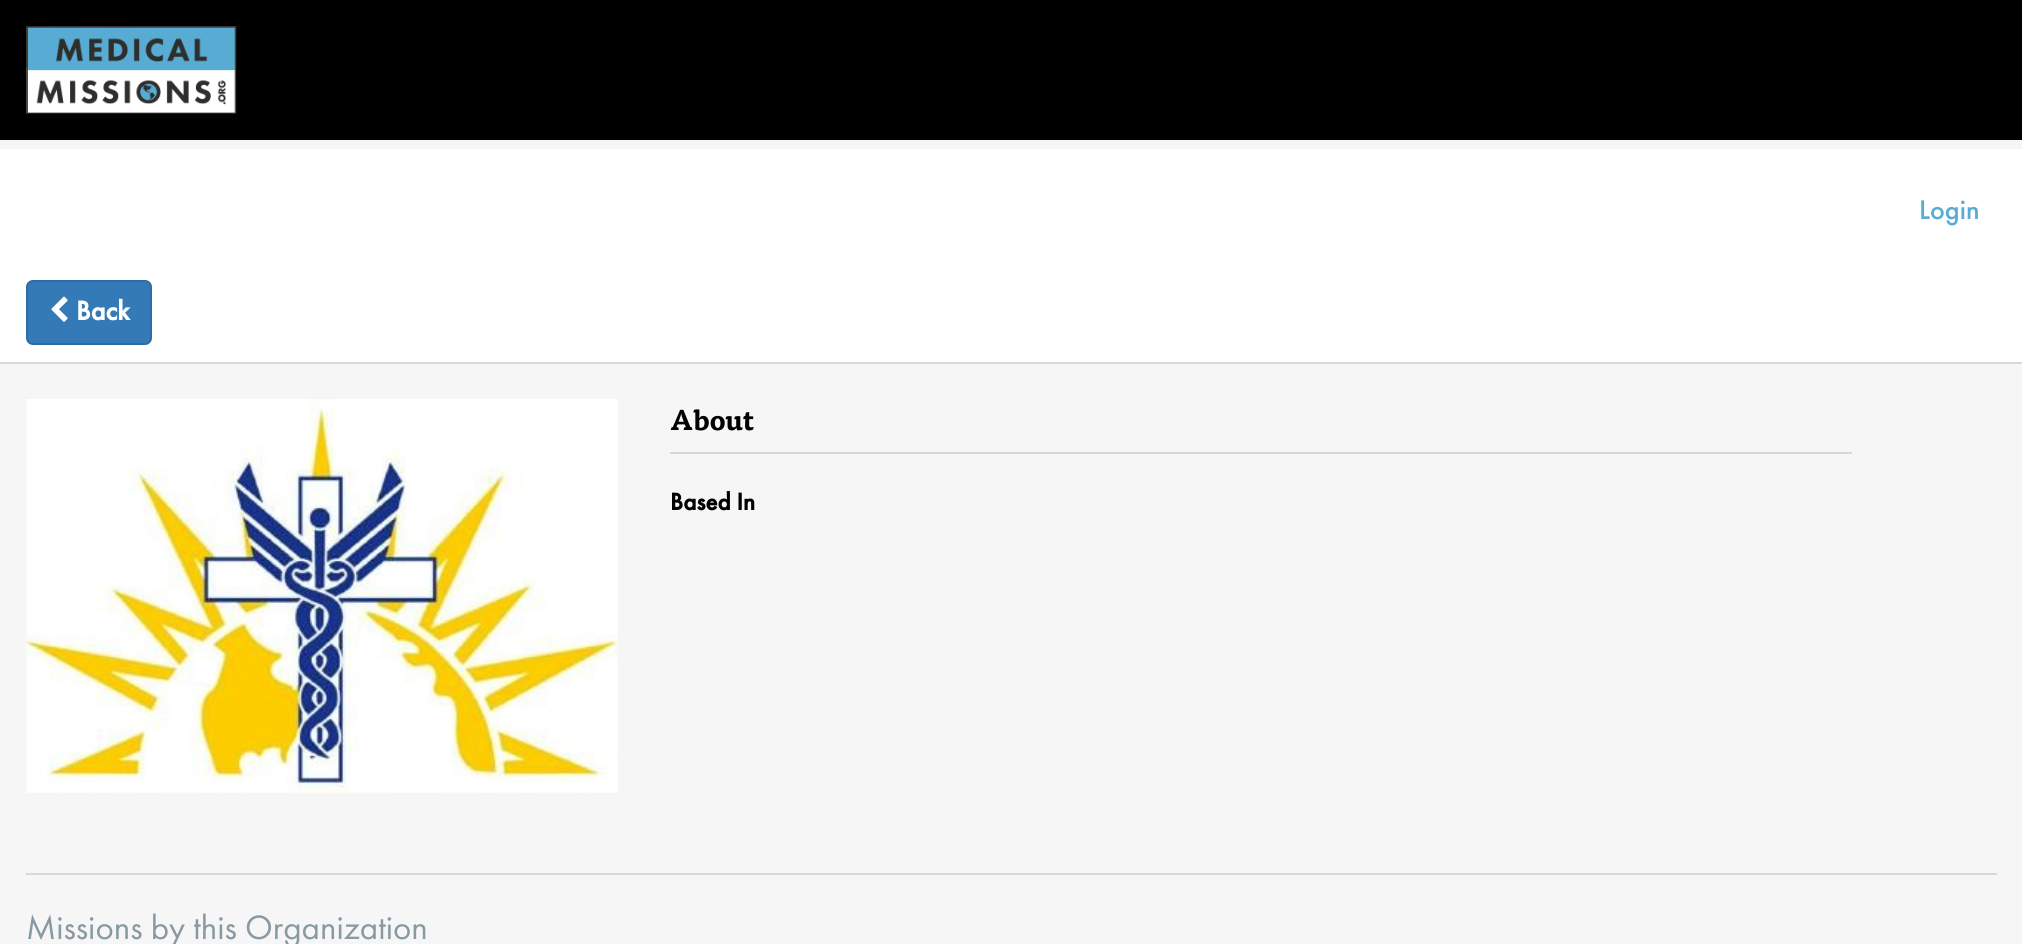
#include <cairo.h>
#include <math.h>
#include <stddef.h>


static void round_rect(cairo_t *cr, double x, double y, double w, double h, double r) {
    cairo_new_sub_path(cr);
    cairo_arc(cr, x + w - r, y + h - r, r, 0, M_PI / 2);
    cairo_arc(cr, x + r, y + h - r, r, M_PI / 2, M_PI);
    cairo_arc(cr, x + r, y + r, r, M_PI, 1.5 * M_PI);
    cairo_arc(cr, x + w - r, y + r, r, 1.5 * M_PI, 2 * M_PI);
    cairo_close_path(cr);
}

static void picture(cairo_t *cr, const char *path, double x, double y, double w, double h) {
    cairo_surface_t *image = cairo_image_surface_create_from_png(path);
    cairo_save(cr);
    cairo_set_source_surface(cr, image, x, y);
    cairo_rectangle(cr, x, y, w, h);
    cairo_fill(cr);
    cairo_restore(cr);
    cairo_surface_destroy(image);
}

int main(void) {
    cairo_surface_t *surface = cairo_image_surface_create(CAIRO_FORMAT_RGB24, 2022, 944);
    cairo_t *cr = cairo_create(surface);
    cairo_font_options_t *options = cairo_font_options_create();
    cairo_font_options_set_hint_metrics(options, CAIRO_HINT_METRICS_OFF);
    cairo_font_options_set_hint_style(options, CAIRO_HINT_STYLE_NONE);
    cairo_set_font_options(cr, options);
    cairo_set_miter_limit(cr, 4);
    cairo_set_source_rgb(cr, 0.961, 0.961, 0.961);
    cairo_paint(cr);
    cairo_set_source_rgb(cr, 0, 0, 0);
    cairo_rectangle(cr, 0, 0, 2022, 140);
    cairo_fill(cr);
    picture(cr, "img1.png", 26, 26, 211, 88);
    cairo_set_source_rgb(cr, 1, 1, 1);
    cairo_rectangle(cr, 0, 149, 2022, 213);
    cairo_fill(cr);
    cairo_select_font_face(cr, "Futura PT Medium", CAIRO_FONT_SLANT_NORMAL, CAIRO_FONT_WEIGHT_NORMAL);
    cairo_set_font_size(cr, 28);
    cairo_set_source_rgb(cr, 0.345, 0.671, 0.824);
    cairo_move_to(cr, 1919, 219);
    cairo_show_text(cr, "Login");
    cairo_set_source_rgb(cr, 0.847, 0.847, 0.847);
    cairo_rectangle(cr, 0, 362, 2022, 2);
    cairo_fill(cr);
    cairo_set_source_rgb(cr, 0.2, 0.478, 0.718);
    round_rect(cr, 27, 281, 124, 63, 6);
    cairo_fill_preserve(cr);
    cairo_set_source_rgb(cr, 0.18, 0.427, 0.643);
    cairo_stroke(cr);
    picture(cr, "img2.png", 51, 296, 17, 26);
    cairo_select_font_face(cr, "Futura PT", CAIRO_FONT_SLANT_NORMAL, CAIRO_FONT_WEIGHT_BOLD);
    cairo_set_source_rgb(cr, 1, 1, 1);
    cairo_move_to(cr, 76, 320);
    cairo_show_text(cr, "Back");
    picture(cr, "img3.png", 26, 399, 592, 394);
    cairo_select_font_face(cr, "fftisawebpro", CAIRO_FONT_SLANT_NORMAL, CAIRO_FONT_WEIGHT_BOLD);
    cairo_set_source_rgb(cr, 0, 0, 0);
    cairo_move_to(cr, 670, 430);
    cairo_show_text(cr, "About");
    cairo_set_source_rgb(cr, 0.847, 0.847, 0.847);
    cairo_rectangle(cr, 670, 452, 1182, 2);
    cairo_fill(cr);
    cairo_select_font_face(cr, "Futura PT", CAIRO_FONT_SLANT_NORMAL, CAIRO_FONT_WEIGHT_BOLD);
    cairo_set_font_size(cr, 25);
    cairo_set_source_rgb(cr, 0, 0, 0);
    cairo_move_to(cr, 670, 510);
    cairo_show_text(cr, "Based In");
    cairo_set_source_rgb(cr, 0.847, 0.847, 0.847);
    cairo_rectangle(cr, 26, 873, 1971, 2);
    cairo_fill(cr);
    cairo_select_font_face(cr, "Futura PT", CAIRO_FONT_SLANT_NORMAL, CAIRO_FONT_WEIGHT_NORMAL);
    cairo_set_font_size(cr, 35);
    cairo_set_source_rgb(cr, 0.537, 0.6, 0.631);
    cairo_move_to(cr, 26, 939);
    cairo_show_text(cr, "Missions by this Organization");
    cairo_surface_write_to_png(surface, "page.png");
    cairo_font_options_destroy(options);
    cairo_destroy(cr);
    cairo_surface_destroy(surface);
    return 0;
}
